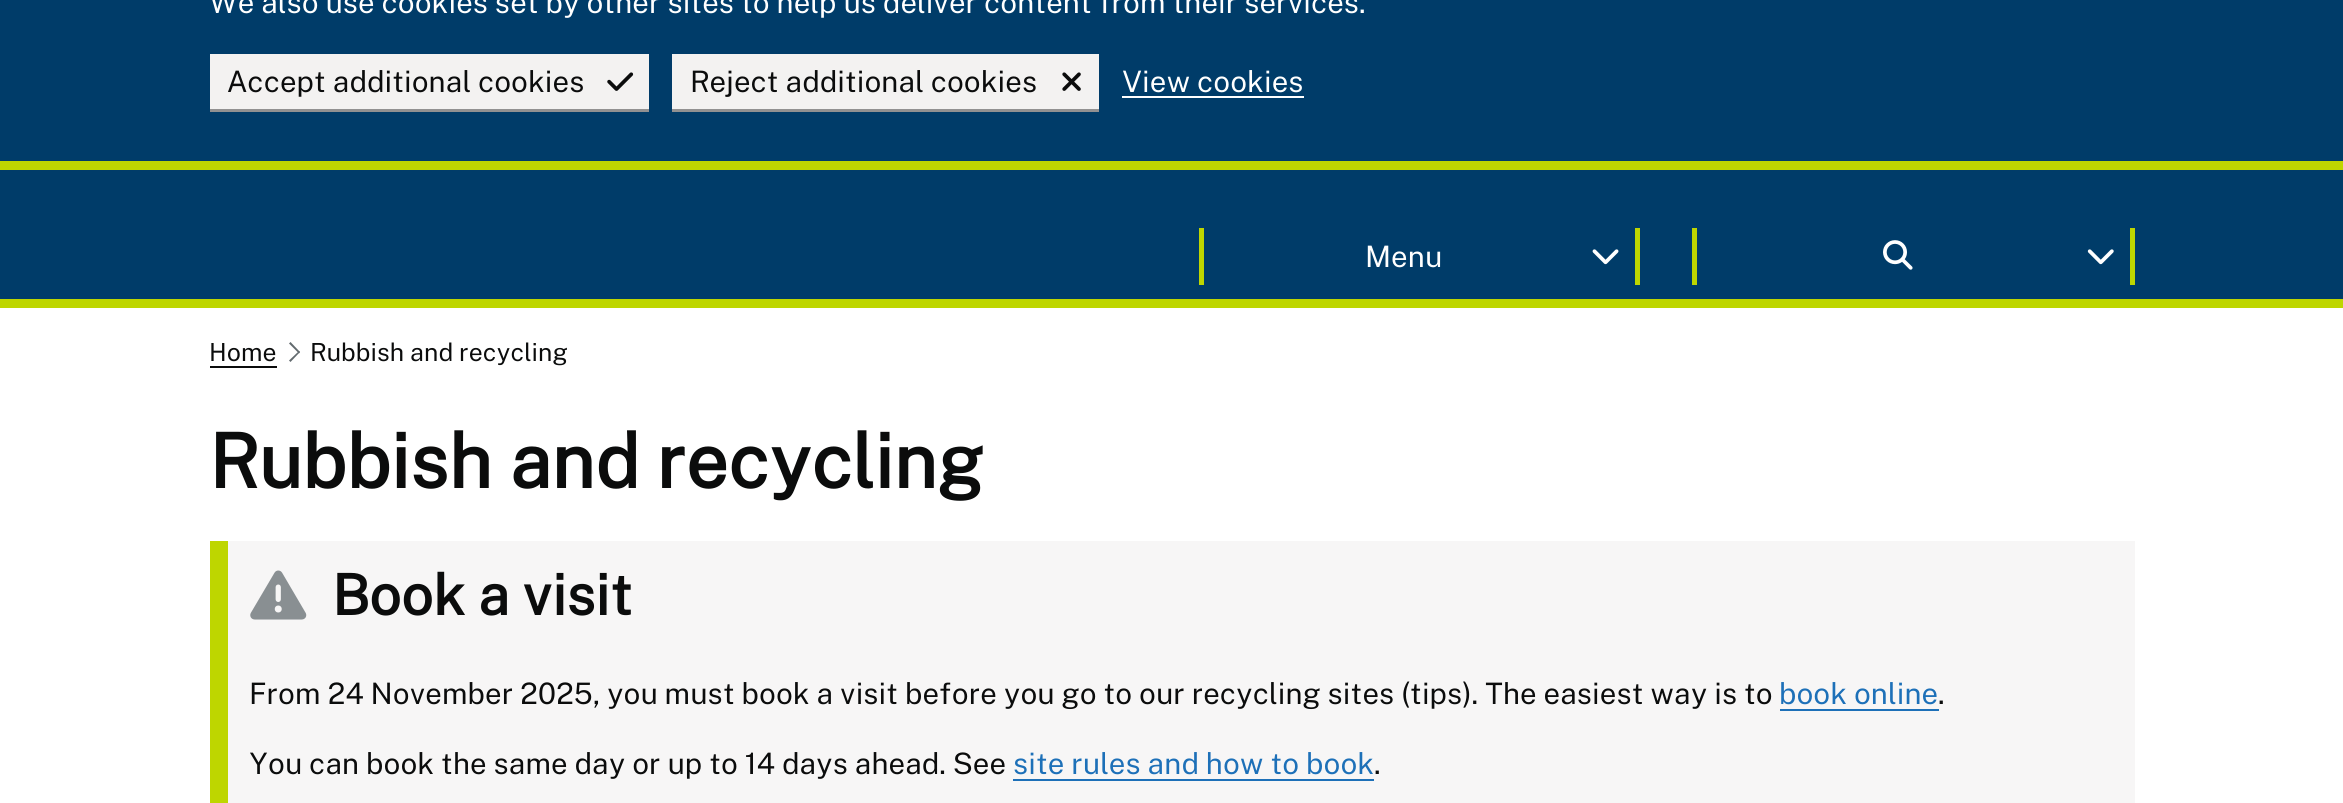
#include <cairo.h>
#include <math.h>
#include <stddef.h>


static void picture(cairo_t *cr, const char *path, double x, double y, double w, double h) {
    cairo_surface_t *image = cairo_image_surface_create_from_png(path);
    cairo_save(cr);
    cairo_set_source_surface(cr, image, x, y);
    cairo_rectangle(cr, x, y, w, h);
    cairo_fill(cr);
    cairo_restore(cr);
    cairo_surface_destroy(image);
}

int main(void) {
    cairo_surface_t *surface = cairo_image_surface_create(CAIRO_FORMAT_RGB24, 2343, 803);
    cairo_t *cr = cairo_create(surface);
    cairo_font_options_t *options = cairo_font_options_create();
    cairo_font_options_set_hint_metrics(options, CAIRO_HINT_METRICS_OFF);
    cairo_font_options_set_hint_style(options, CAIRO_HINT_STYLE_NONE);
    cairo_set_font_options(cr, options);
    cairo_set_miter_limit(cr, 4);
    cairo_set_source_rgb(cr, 1, 1, 1);
    cairo_paint(cr);
    cairo_set_source_rgb(cr, 0, 0.235, 0.412);
    cairo_rectangle(cr, 0, 0, 2343, 299);
    cairo_fill(cr);
    cairo_set_source_rgb(cr, 0.745, 0.839, 0);
    cairo_rectangle(cr, 0, 161, 2343, 9);
    cairo_fill(cr);
    cairo_select_font_face(cr, "Public Sans", CAIRO_FONT_SLANT_NORMAL, CAIRO_FONT_WEIGHT_NORMAL);
    cairo_set_font_size(cr, 29.55);
    cairo_set_source_rgb(cr, 1, 1, 1);
    cairo_move_to(cr, 209, 13);
    cairo_show_text(cr, "We also use cookies set by other sites to help us deliver content from their services.");
    cairo_set_source_rgb(cr, 0.573, 0.569, 0.569);
    cairo_rectangle(cr, 210, 109, 439, 3);
    cairo_fill(cr);
    cairo_set_source_rgb(cr, 0.953, 0.949, 0.945);
    cairo_rectangle(cr, 210, 54, 439, 55);
    cairo_fill(cr);
    cairo_set_source_rgb(cr, 0.043, 0.047, 0.047);
    cairo_move_to(cr, 227, 92);
    cairo_show_text(cr, "Accept additional cookies");
    picture(cr, "img1.png", 607, 72, 27, 19);
    cairo_set_source_rgb(cr, 0.573, 0.569, 0.569);
    cairo_rectangle(cr, 672, 109, 427, 3);
    cairo_fill(cr);
    cairo_set_source_rgb(cr, 0.953, 0.949, 0.945);
    cairo_rectangle(cr, 672, 54, 427, 55);
    cairo_fill(cr);
    cairo_set_source_rgb(cr, 0.043, 0.047, 0.047);
    cairo_move_to(cr, 690, 92);
    cairo_show_text(cr, "Reject additional cookies");
    picture(cr, "img2.png", 1062, 72, 19, 19);
    cairo_set_source_rgb(cr, 1, 1, 1);
    cairo_move_to(cr, 1122, 92);
    cairo_show_text(cr, "View cookies");
    cairo_rectangle(cr, 1122, 96, 182, 2);
    cairo_fill(cr);
    cairo_set_source_rgb(cr, 0.745, 0.839, 0);
    cairo_rectangle(cr, 0, 299, 2343, 9);
    cairo_fill(cr);
    cairo_rectangle(cr, 1635, 228, 5, 57);
    cairo_fill(cr);
    cairo_rectangle(cr, 1199, 228, 5, 57);
    cairo_fill(cr);
    cairo_set_source_rgb(cr, 1, 1, 1);
    cairo_move_to(cr, 1365, 267);
    cairo_show_text(cr, "Menu");
    picture(cr, "img3.png", 1592, 249, 27, 16);
    cairo_set_source_rgb(cr, 0.745, 0.839, 0);
    cairo_rectangle(cr, 2130, 228, 5, 57);
    cairo_fill(cr);
    cairo_rectangle(cr, 1692, 228, 5, 57);
    cairo_fill(cr);
    picture(cr, "img4.png", 1883, 240, 30, 30);
    picture(cr, "img5.png", 2087, 249, 27, 16);
    cairo_set_font_size(cr, 24.9);
    cairo_set_source_rgb(cr, 0.043, 0.047, 0.047);
    cairo_move_to(cr, 209, 361);
    cairo_show_text(cr, "Home");
    cairo_rectangle(cr, 210, 366, 67, 2);
    cairo_fill(cr);
    cairo_set_source_rgb(cr, 0.384, 0.416, 0.431);
    cairo_new_path(cr);
    cairo_move_to(cr, 290.5, 342);
    cairo_line_to(cr, 300, 352);
    cairo_line_to(cr, 299, 353.5);
    cairo_line_to(cr, 289, 343.5);
    cairo_close_path(cr);
    cairo_fill(cr);
    cairo_new_path(cr);
    cairo_move_to(cr, 299, 351);
    cairo_line_to(cr, 300, 352);
    cairo_line_to(cr, 290.5, 362);
    cairo_line_to(cr, 289, 360.5);
    cairo_close_path(cr);
    cairo_fill(cr);
    cairo_set_source_rgb(cr, 0.043, 0.047, 0.047);
    cairo_move_to(cr, 310, 361);
    cairo_show_text(cr, "Rubbish and recycling");
    cairo_select_font_face(cr, "Public Sans", CAIRO_FONT_SLANT_NORMAL, CAIRO_FONT_WEIGHT_BOLD);
    cairo_set_font_size(cr, 74.75);
    cairo_move_to(cr, 209, 488);
    cairo_show_text(cr, "Rubbish and recycling");
    cairo_set_source_rgb(cr, 0.965, 0.961, 0.961);
    cairo_rectangle(cr, 228, 541, 1907, 262);
    cairo_fill(cr);
    cairo_set_source_rgb(cr, 0.745, 0.839, 0);
    cairo_rectangle(cr, 210, 541, 18, 262);
    cairo_fill(cr);
    picture(cr, "img6.png", 250, 570, 57, 50);
    cairo_set_font_size(cr, 56);
    cairo_set_source_rgb(cr, 0.043, 0.047, 0.047);
    cairo_move_to(cr, 332, 615);
    cairo_show_text(cr, "Book a visit");
    cairo_select_font_face(cr, "Public Sans", CAIRO_FONT_SLANT_NORMAL, CAIRO_FONT_WEIGHT_NORMAL);
    cairo_set_font_size(cr, 29.55);
    cairo_move_to(cr, 249, 704);
    cairo_show_text(cr, "From 24 November 2025, you must book a visit before you go to our recycling sites (tips). The easiest way is to");
    cairo_set_source_rgb(cr, 0.114, 0.439, 0.722);
    cairo_move_to(cr, 1779, 704);
    cairo_show_text(cr, "book online");
    cairo_rectangle(cr, 1780, 709, 159, 2);
    cairo_fill(cr);
    cairo_set_source_rgb(cr, 0.043, 0.047, 0.047);
    cairo_move_to(cr, 1938, 704);
    cairo_show_text(cr, ".");
    cairo_move_to(cr, 249, 774);
    cairo_show_text(cr, "You can book the same day or up to 14 days ahead. See");
    cairo_set_source_rgb(cr, 0.114, 0.439, 0.722);
    cairo_move_to(cr, 1013, 774);
    cairo_show_text(cr, "site rules and how to book");
    cairo_rectangle(cr, 1013, 779, 361, 2);
    cairo_fill(cr);
    cairo_set_source_rgb(cr, 0.043, 0.047, 0.047);
    cairo_move_to(cr, 1374, 774);
    cairo_show_text(cr, ".");
    cairo_surface_write_to_png(surface, "page.png");
    cairo_font_options_destroy(options);
    cairo_destroy(cr);
    cairo_surface_destroy(surface);
    return 0;
}
